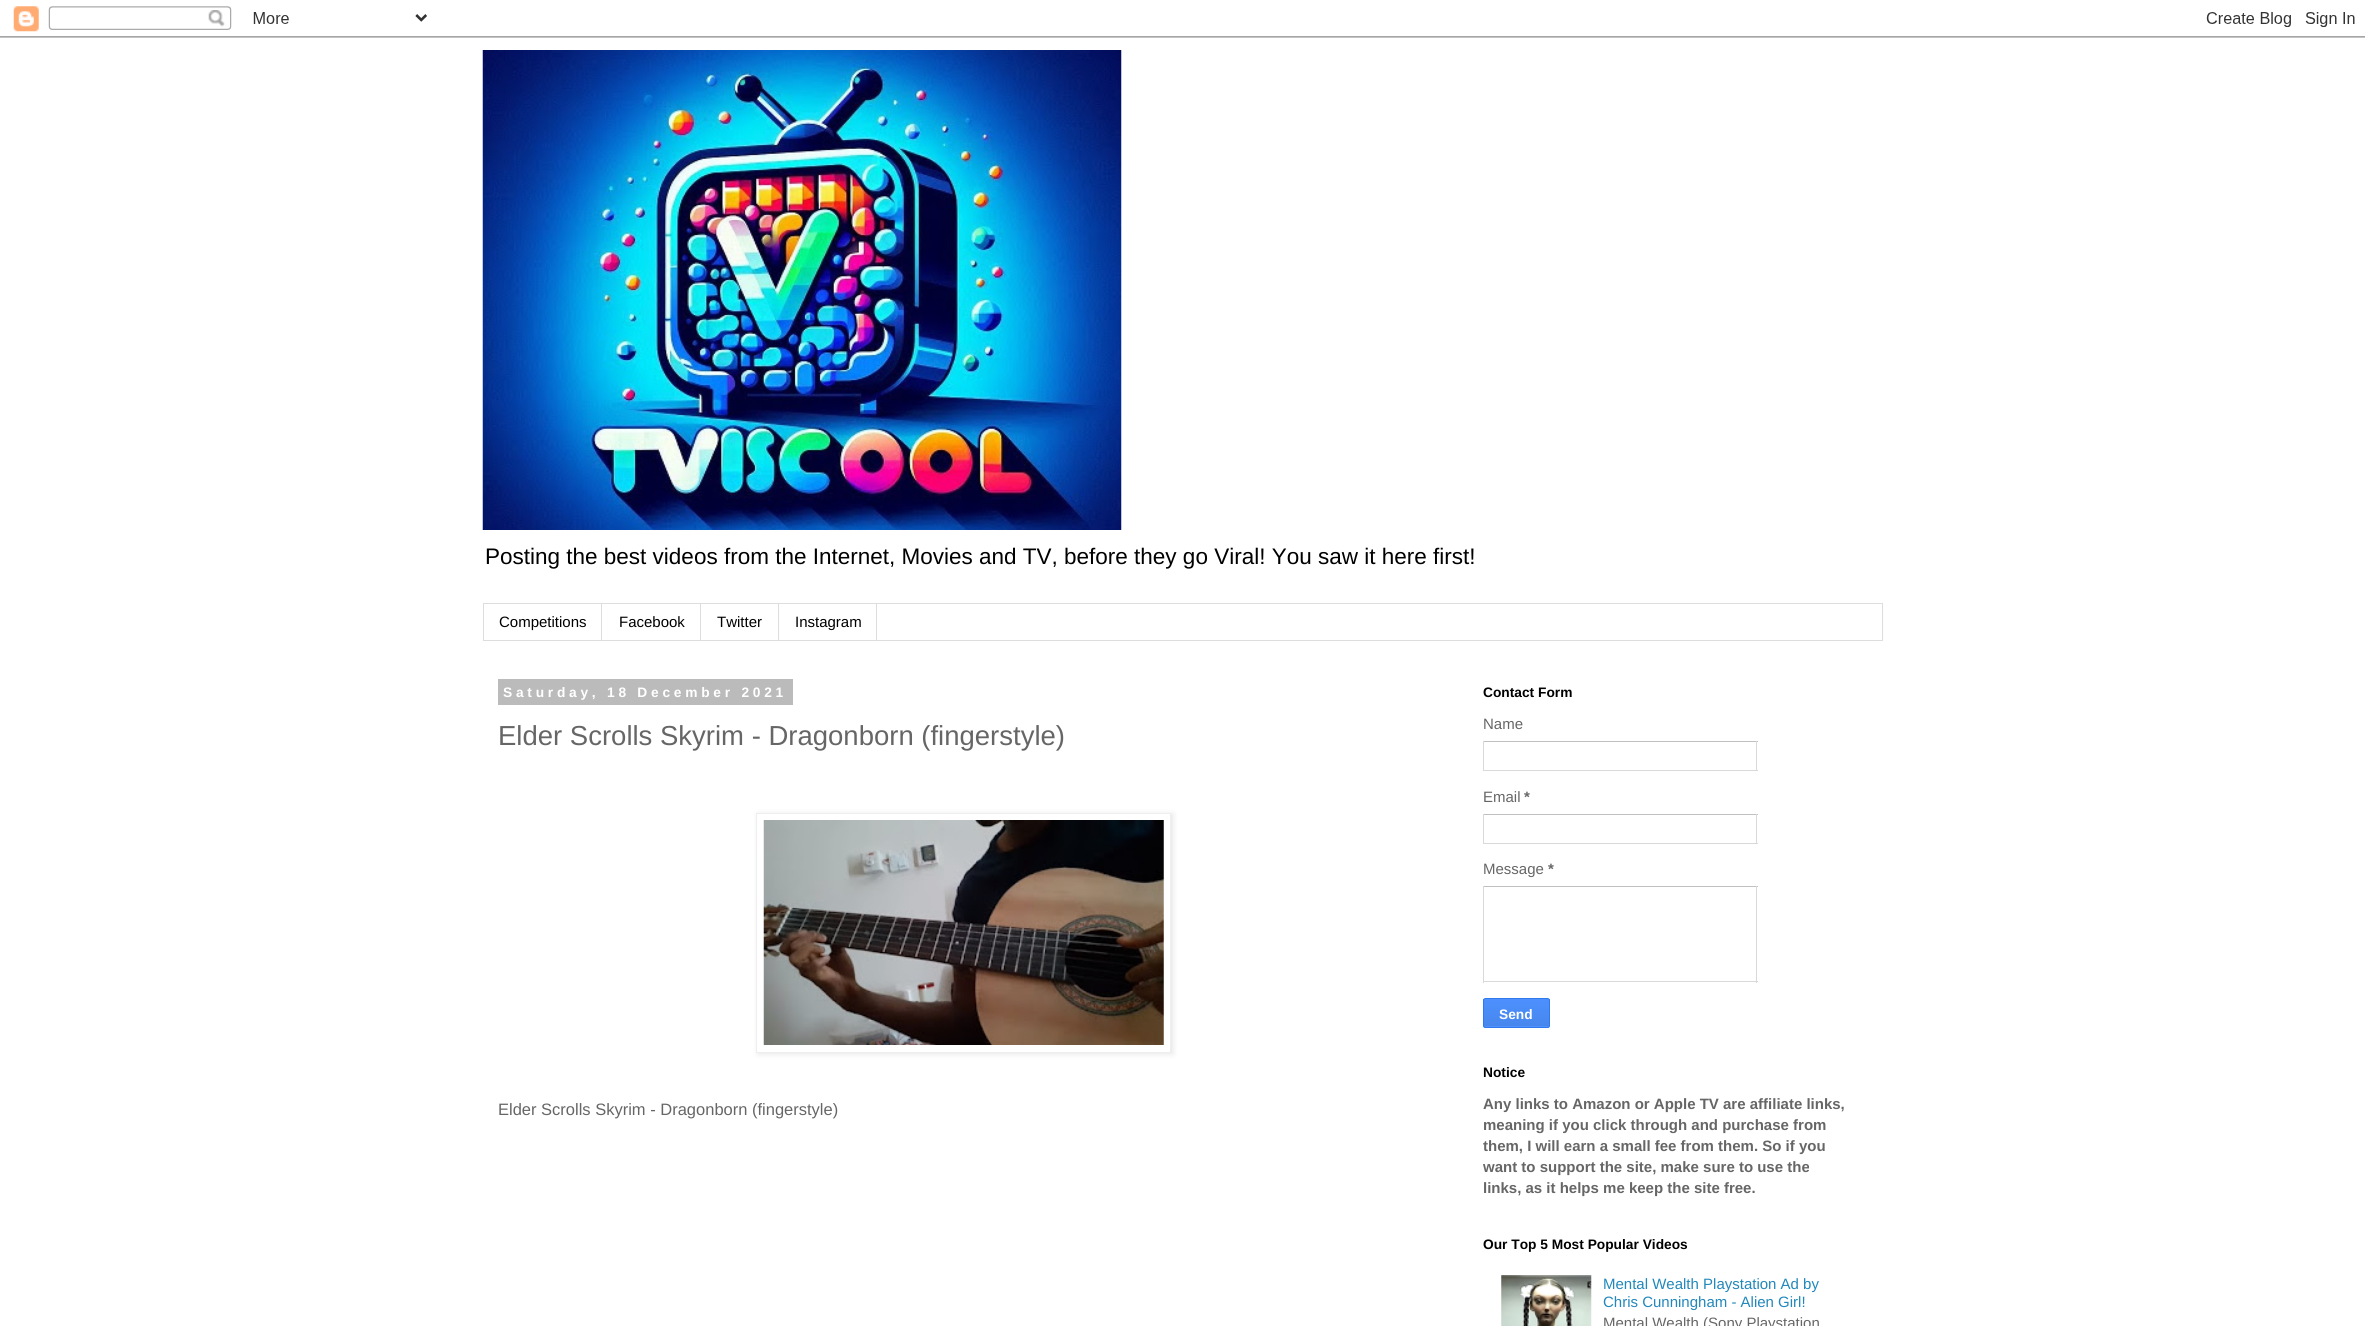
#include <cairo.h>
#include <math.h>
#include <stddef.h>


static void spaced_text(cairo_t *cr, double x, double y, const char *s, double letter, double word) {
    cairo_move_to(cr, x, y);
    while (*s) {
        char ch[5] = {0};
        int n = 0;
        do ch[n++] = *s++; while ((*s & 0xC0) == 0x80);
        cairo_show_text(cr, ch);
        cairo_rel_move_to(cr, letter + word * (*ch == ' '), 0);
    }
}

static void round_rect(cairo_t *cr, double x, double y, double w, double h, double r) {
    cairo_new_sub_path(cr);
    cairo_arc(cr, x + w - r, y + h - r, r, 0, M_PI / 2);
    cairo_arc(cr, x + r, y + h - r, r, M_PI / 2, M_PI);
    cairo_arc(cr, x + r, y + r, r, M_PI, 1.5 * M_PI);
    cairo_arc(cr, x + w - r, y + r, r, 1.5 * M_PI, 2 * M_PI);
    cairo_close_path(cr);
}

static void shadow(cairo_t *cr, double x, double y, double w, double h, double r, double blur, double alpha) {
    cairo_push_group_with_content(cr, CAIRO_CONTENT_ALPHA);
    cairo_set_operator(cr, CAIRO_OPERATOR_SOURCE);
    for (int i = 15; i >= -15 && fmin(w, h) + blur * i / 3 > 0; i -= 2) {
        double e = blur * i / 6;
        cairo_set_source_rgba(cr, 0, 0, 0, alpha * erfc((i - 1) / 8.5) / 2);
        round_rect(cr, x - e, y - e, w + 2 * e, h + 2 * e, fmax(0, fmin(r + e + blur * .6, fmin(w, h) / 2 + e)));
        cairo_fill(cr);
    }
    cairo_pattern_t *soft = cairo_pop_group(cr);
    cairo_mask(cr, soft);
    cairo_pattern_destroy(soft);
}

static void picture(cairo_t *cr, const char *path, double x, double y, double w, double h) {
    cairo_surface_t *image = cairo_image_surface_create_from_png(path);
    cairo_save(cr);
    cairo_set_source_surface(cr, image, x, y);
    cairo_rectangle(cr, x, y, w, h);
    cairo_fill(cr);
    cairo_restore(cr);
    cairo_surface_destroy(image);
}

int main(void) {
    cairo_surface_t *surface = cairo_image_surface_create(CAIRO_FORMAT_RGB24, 2365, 1326);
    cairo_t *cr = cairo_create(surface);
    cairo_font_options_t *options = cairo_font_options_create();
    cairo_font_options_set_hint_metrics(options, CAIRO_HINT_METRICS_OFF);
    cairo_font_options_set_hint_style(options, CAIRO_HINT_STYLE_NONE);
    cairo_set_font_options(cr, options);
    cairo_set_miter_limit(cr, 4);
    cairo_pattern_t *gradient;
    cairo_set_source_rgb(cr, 1, 1, 1);
    cairo_paint(cr);
    picture(cr, "img1.png", 0, 6, 2365, 32);
    picture(cr, "img2.png", 482, 50, 640, 480);
    cairo_select_font_face(cr, "Liberation Sans", CAIRO_FONT_SLANT_NORMAL, CAIRO_FONT_WEIGHT_NORMAL);
    cairo_set_font_size(cr, 22.5);
    cairo_set_source_rgb(cr, 0, 0, 0);
    cairo_move_to(cr, 485, 564);
    cairo_show_text(cr, "Posting the best videos from the Internet, Movies and TV, before they go Viral! You saw it here first!");
    cairo_rectangle(cr, 483.5, 603.5, 1399, 37);
    cairo_set_source_rgb(cr, 0.867, 0.867, 0.867);
    cairo_set_line_width(cr, 1);
    cairo_stroke(cr);
    cairo_rectangle(cr, 601, 604, 1, 36);
    cairo_fill(cr);
    cairo_set_font_size(cr, 15);
    cairo_set_source_rgb(cr, 0, 0, 0);
    cairo_move_to(cr, 499, 627);
    cairo_show_text(cr, "Competitions");
    cairo_set_source_rgb(cr, 0.867, 0.867, 0.867);
    cairo_rectangle(cr, 700, 604, 1, 36);
    cairo_fill(cr);
    cairo_set_source_rgb(cr, 0, 0, 0);
    cairo_move_to(cr, 619, 627);
    cairo_show_text(cr, "Facebook");
    cairo_set_source_rgb(cr, 0.867, 0.867, 0.867);
    cairo_rectangle(cr, 778, 604, 1, 36);
    cairo_fill(cr);
    cairo_set_source_rgb(cr, 0, 0, 0);
    cairo_move_to(cr, 717, 627);
    cairo_show_text(cr, "Twitter");
    cairo_set_source_rgb(cr, 0.867, 0.867, 0.867);
    cairo_rectangle(cr, 876, 604, 1, 36);
    cairo_fill(cr);
    cairo_set_source_rgb(cr, 0, 0, 0);
    cairo_move_to(cr, 795, 627);
    cairo_show_text(cr, "Instagram");
    cairo_set_source_rgb(cr, 0.733, 0.733, 0.733);
    cairo_rectangle(cr, 498, 679, 295, 26);
    cairo_fill(cr);
    cairo_select_font_face(cr, "Liberation Sans", CAIRO_FONT_SLANT_NORMAL, CAIRO_FONT_WEIGHT_BOLD);
    cairo_set_font_size(cr, 13.75);
    cairo_set_source_rgb(cr, 1, 1, 1);
    spaced_text(cr, 503, 697, "Saturday, 18 December 2021", 3.75, 0);
    cairo_select_font_face(cr, "Liberation Sans", CAIRO_FONT_SLANT_NORMAL, CAIRO_FONT_WEIGHT_NORMAL);
    cairo_set_font_size(cr, 27.5);
    cairo_set_source_rgb(cr, 0.4, 0.4, 0.4);
    cairo_move_to(cr, 498, 745);
    cairo_show_text(cr, "Elder Scrolls Skyrim - Dragonborn (fingerstyle)");
    cairo_set_source_rgb(cr, 0, 0, 0);
    shadow(cr, 758, 814, 415, 240, 0, 3, 0.1);
    cairo_set_source_rgb(cr, 1, 1, 1);
    cairo_rectangle(cr, 756.5, 813.5, 414, 239);
    cairo_fill_preserve(cr);
    cairo_set_source_rgb(cr, 0.933, 0.933, 0.933);
    cairo_stroke(cr);
    picture(cr, "img3.png", 763, 820, 401, 225);
    cairo_set_font_size(cr, 16.5);
    cairo_set_source_rgb(cr, 0.4, 0.4, 0.4);
    cairo_move_to(cr, 498, 1115);
    cairo_show_text(cr, "Elder Scrolls Skyrim - Dragonborn (fingerstyle)");
    cairo_select_font_face(cr, "Liberation Sans", CAIRO_FONT_SLANT_NORMAL, CAIRO_FONT_WEIGHT_BOLD);
    cairo_set_font_size(cr, 13.75);
    cairo_set_source_rgb(cr, 0, 0, 0);
    cairo_move_to(cr, 1483, 697);
    cairo_show_text(cr, "Contact Form");
    cairo_select_font_face(cr, "Liberation Sans", CAIRO_FONT_SLANT_NORMAL, CAIRO_FONT_WEIGHT_NORMAL);
    cairo_set_font_size(cr, 15);
    cairo_set_source_rgb(cr, 0.4, 0.4, 0.4);
    cairo_move_to(cr, 1483, 729);
    cairo_show_text(cr, "Name");
    cairo_set_source_rgb(cr, 0.753, 0.753, 0.753);
    cairo_rectangle(cr, 1483, 741, 275, 1);
    cairo_fill(cr);
    cairo_set_source_rgb(cr, 0.851, 0.851, 0.851);
    cairo_rectangle(cr, 1756, 741, 1, 30);
    cairo_fill(cr);
    cairo_rectangle(cr, 1483, 770, 275, 1);
    cairo_fill(cr);
    cairo_rectangle(cr, 1483, 741, 1, 30);
    cairo_fill(cr);
    cairo_set_source_rgb(cr, 0.4, 0.4, 0.4);
    cairo_move_to(cr, 1483, 802);
    cairo_show_text(cr, "Email");
    cairo_select_font_face(cr, "Liberation Sans", CAIRO_FONT_SLANT_NORMAL, CAIRO_FONT_WEIGHT_BOLD);
    cairo_move_to(cr, 1524, 802);
    cairo_show_text(cr, "*");
    cairo_set_source_rgb(cr, 0.753, 0.753, 0.753);
    cairo_rectangle(cr, 1483, 814, 275, 1);
    cairo_fill(cr);
    cairo_set_source_rgb(cr, 0.851, 0.851, 0.851);
    cairo_rectangle(cr, 1756, 814, 1, 30);
    cairo_fill(cr);
    cairo_rectangle(cr, 1483, 843, 275, 1);
    cairo_fill(cr);
    cairo_rectangle(cr, 1483, 814, 1, 30);
    cairo_fill(cr);
    cairo_select_font_face(cr, "Liberation Sans", CAIRO_FONT_SLANT_NORMAL, CAIRO_FONT_WEIGHT_NORMAL);
    cairo_set_source_rgb(cr, 0.4, 0.4, 0.4);
    cairo_move_to(cr, 1483, 874);
    cairo_show_text(cr, "Message");
    cairo_select_font_face(cr, "Liberation Sans", CAIRO_FONT_SLANT_NORMAL, CAIRO_FONT_WEIGHT_BOLD);
    cairo_move_to(cr, 1548, 874);
    cairo_show_text(cr, "*");
    cairo_set_source_rgb(cr, 0.753, 0.753, 0.753);
    cairo_rectangle(cr, 1483, 886, 275, 1);
    cairo_fill(cr);
    cairo_set_source_rgb(cr, 0.851, 0.851, 0.851);
    cairo_rectangle(cr, 1756, 886, 1, 97);
    cairo_fill(cr);
    cairo_rectangle(cr, 1483, 981, 275, 1);
    cairo_fill(cr);
    cairo_rectangle(cr, 1483, 886, 1, 97);
    cairo_fill(cr);
    gradient = cairo_pattern_create_linear(1516, 999, 1516, 1026);
    cairo_pattern_add_color_stop_rgba(gradient, 0, 0.302, 0.565, 0.996, 1);
    cairo_pattern_add_color_stop_rgba(gradient, 1, 0.278, 0.529, 0.929, 1);
    cairo_set_source(cr, gradient);
    cairo_pattern_destroy(gradient);
    cairo_rectangle(cr, 1483, 999, 67, 27);
    cairo_fill(cr);
    cairo_save(cr);
    round_rect(cr, 1483, 998, 67, 30, 2.5);
    cairo_clip(cr);
    gradient = cairo_pattern_create_linear(1516, 1026, 1516, 1054);
    cairo_pattern_add_color_stop_rgba(gradient, 0, 0.302, 0.565, 0.996, 1);
    cairo_pattern_add_color_stop_rgba(gradient, 1, 0.278, 0.529, 0.929, 1);
    cairo_set_source(cr, gradient);
    cairo_pattern_destroy(gradient);
    cairo_rectangle(cr, 1483, 1026, 67, 2);
    cairo_fill(cr);
    cairo_restore(cr);
    round_rect(cr, 1483.5, 998.5, 66, 29, 2);
    cairo_set_source_rgb(cr, 0.188, 0.475, 0.929);
    cairo_stroke(cr);
    cairo_set_font_size(cr, 13.75);
    cairo_set_source_rgb(cr, 1, 1, 1);
    cairo_move_to(cr, 1499, 1019);
    cairo_show_text(cr, "Send");
    cairo_set_source_rgb(cr, 0, 0, 0);
    cairo_move_to(cr, 1483, 1077);
    cairo_show_text(cr, "Notice");
    cairo_set_font_size(cr, 15);
    cairo_set_source_rgb(cr, 0.4, 0.4, 0.4);
    cairo_move_to(cr, 1483, 1109);
    cairo_show_text(cr, "Any links to Amazon or Apple TV are affiliate links,");
    cairo_move_to(cr, 1483, 1130);
    cairo_show_text(cr, "meaning if you click through and purchase from");
    cairo_move_to(cr, 1483, 1151);
    cairo_show_text(cr, "them, I will earn a small fee from them. So if you");
    cairo_move_to(cr, 1483, 1172);
    cairo_show_text(cr, "want to support the site, make sure to use the");
    cairo_move_to(cr, 1483, 1193);
    cairo_show_text(cr, "links, as it helps me keep the site free.");
    cairo_set_font_size(cr, 13.75);
    cairo_set_source_rgb(cr, 0, 0, 0);
    cairo_move_to(cr, 1483, 1249);
    cairo_show_text(cr, "Our Top 5 Most Popular Videos");
    picture(cr, "img4.png", 1501, 1275, 91, 51);
    cairo_select_font_face(cr, "Liberation Sans", CAIRO_FONT_SLANT_NORMAL, CAIRO_FONT_WEIGHT_NORMAL);
    cairo_set_font_size(cr, 15);
    cairo_set_source_rgb(cr, 0.133, 0.533, 0.733);
    cairo_move_to(cr, 1603, 1289);
    cairo_show_text(cr, "Mental Wealth Playstation Ad by");
    cairo_move_to(cr, 1603, 1307);
    cairo_show_text(cr, "Chris Cunningham - Alien Girl!");
    cairo_set_source_rgb(cr, 0.4, 0.4, 0.4);
    cairo_move_to(cr, 1603, 1328);
    cairo_show_text(cr, "Mental Wealth (Sony Playstation");
    cairo_surface_write_to_png(surface, "page.png");
    cairo_font_options_destroy(options);
    cairo_destroy(cr);
    cairo_surface_destroy(surface);
    return 0;
}
